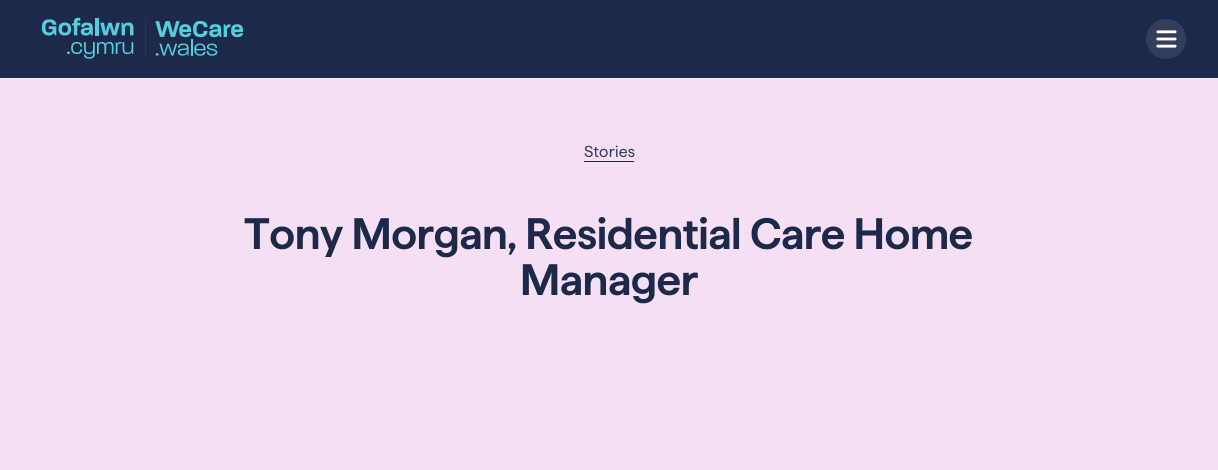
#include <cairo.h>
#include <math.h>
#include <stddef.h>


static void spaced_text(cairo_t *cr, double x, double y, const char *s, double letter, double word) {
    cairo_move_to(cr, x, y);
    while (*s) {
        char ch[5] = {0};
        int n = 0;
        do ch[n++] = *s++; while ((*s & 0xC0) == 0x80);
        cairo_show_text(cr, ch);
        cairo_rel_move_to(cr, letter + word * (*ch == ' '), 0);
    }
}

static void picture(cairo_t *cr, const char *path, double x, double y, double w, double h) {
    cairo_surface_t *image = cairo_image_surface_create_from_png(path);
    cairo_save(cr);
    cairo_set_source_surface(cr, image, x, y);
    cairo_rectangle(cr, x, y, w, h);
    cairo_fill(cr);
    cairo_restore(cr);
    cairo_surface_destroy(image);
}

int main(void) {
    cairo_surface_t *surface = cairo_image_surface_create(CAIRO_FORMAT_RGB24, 1218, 470);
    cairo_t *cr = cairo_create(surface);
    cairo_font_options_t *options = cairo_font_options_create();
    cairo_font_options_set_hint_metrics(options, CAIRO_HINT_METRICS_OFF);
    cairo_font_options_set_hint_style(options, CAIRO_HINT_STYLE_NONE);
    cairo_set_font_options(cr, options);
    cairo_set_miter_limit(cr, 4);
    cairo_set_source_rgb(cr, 0.11, 0.161, 0.29);
    cairo_paint(cr);
    picture(cr, "img1.png", 41, 17, 203, 42);
    cairo_set_source_rgb(cr, 0.196, 0.243, 0.361);
    cairo_arc(cr, 1166, 39, 20, 0, 2 * M_PI);
    cairo_fill(cr);
    picture(cr, "img2.png", 1156, 30, 21, 18);
    cairo_set_source_rgb(cr, 0.965, 0.875, 0.953);
    cairo_rectangle(cr, 0, 78, 1218, 392);
    cairo_fill(cr);
    cairo_set_source_rgb(cr, 0.11, 0.161, 0.29);
    cairo_rectangle(cr, 584, 161, 50, 1);
    cairo_fill(cr);
    cairo_select_font_face(cr, "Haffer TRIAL", CAIRO_FONT_SLANT_NORMAL, CAIRO_FONT_WEIGHT_NORMAL);
    cairo_set_font_size(cr, 16);
    cairo_set_source_rgb(cr, 0.196, 0.243, 0.361);
    spaced_text(cr, 584, 157, "Stories", 0.25, 0);
    cairo_select_font_face(cr, "Haffer TRIAL SemiBold", CAIRO_FONT_SLANT_NORMAL, CAIRO_FONT_WEIGHT_NORMAL);
    cairo_set_font_size(cr, 44);
    cairo_set_source_rgb(cr, 0.11, 0.161, 0.29);
    spaced_text(cr, 244, 249, "Tony Morgan, Residential Care Home", -0.45, 0);
    spaced_text(cr, 520, 295, "Manager", -0.45, 0);
    cairo_surface_write_to_png(surface, "page.png");
    cairo_font_options_destroy(options);
    cairo_destroy(cr);
    cairo_surface_destroy(surface);
    return 0;
}
